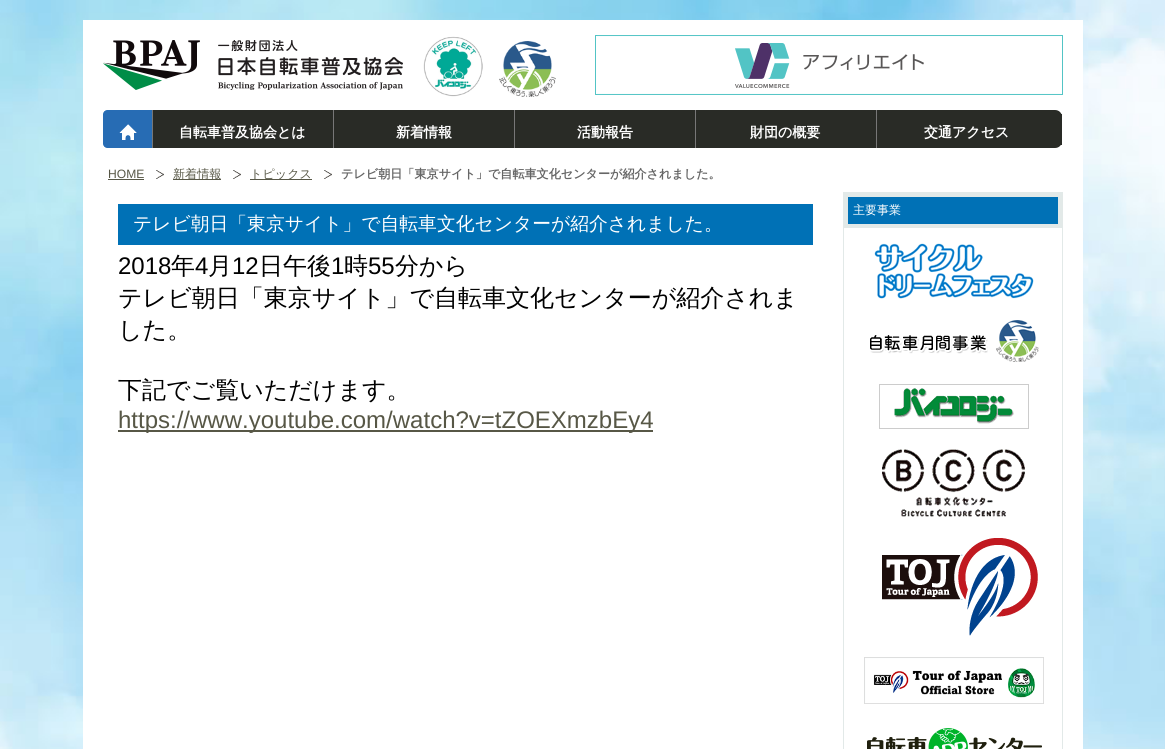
#include <cairo.h>
#include <math.h>
#include <stddef.h>


static void picture(cairo_t *cr, const char *path, double x, double y, double w, double h) {
    cairo_surface_t *image = cairo_image_surface_create_from_png(path);
    cairo_save(cr);
    cairo_set_source_surface(cr, image, x, y);
    cairo_rectangle(cr, x, y, w, h);
    cairo_fill(cr);
    cairo_restore(cr);
    cairo_surface_destroy(image);
}

int main(void) {
    cairo_surface_t *surface = cairo_image_surface_create(CAIRO_FORMAT_RGB24, 1165, 749);
    cairo_t *cr = cairo_create(surface);
    cairo_font_options_t *options = cairo_font_options_create();
    cairo_font_options_set_hint_metrics(options, CAIRO_HINT_METRICS_OFF);
    cairo_font_options_set_hint_style(options, CAIRO_HINT_STYLE_NONE);
    cairo_set_font_options(cr, options);
    cairo_set_miter_limit(cr, 4);
    cairo_set_source_rgb(cr, 1, 1, 1);
    cairo_paint(cr);
    picture(cr, "img1.png", 0, 0, 1165, 749);
    cairo_set_source_rgb(cr, 1, 1, 1);
    cairo_rectangle(cr, 83, 20, 1000, 729);
    cairo_fill(cr);
    picture(cr, "img2.png", 103, 40, 300, 50);
    picture(cr, "img3.png", 423, 36, 60, 61);
    picture(cr, "img4.png", 499, 41, 57, 56);
    picture(cr, "img5.png", 595, 35, 468, 60);
    picture(cr, "img6.png", 103, 110, 49, 38);
    cairo_set_source_rgb(cr, 0.467, 0.467, 0.467);
    cairo_rectangle(cr, 152, 110, 1, 38);
    cairo_fill(cr);
    cairo_set_source_rgb(cr, 0.161, 0.169, 0.149);
    cairo_rectangle(cr, 153, 110, 180, 38);
    cairo_fill(cr);
    cairo_set_source_rgb(cr, 0.467, 0.467, 0.467);
    cairo_rectangle(cr, 333, 110, 1, 38);
    cairo_fill(cr);
    cairo_select_font_face(cr, "WenQuanYi Zen Hei", CAIRO_FONT_SLANT_NORMAL, CAIRO_FONT_WEIGHT_BOLD);
    cairo_set_font_size(cr, 14);
    cairo_set_source_rgb(cr, 1, 1, 1);
    cairo_move_to(cr, 179, 137);
    cairo_show_text(cr, "自転車普及協会とは");
    cairo_set_source_rgb(cr, 0.161, 0.169, 0.149);
    cairo_rectangle(cr, 334, 110, 180, 38);
    cairo_fill(cr);
    cairo_set_source_rgb(cr, 0.467, 0.467, 0.467);
    cairo_rectangle(cr, 514, 110, 1, 38);
    cairo_fill(cr);
    cairo_set_source_rgb(cr, 1, 1, 1);
    cairo_move_to(cr, 396, 137);
    cairo_show_text(cr, "新着情報");
    cairo_set_source_rgb(cr, 0.161, 0.169, 0.149);
    cairo_rectangle(cr, 515, 110, 180, 38);
    cairo_fill(cr);
    cairo_set_source_rgb(cr, 0.467, 0.467, 0.467);
    cairo_rectangle(cr, 695, 110, 1, 38);
    cairo_fill(cr);
    cairo_set_source_rgb(cr, 1, 1, 1);
    cairo_move_to(cr, 577, 137);
    cairo_show_text(cr, "活動報告");
    cairo_set_source_rgb(cr, 0.161, 0.169, 0.149);
    cairo_rectangle(cr, 696, 110, 180, 38);
    cairo_fill(cr);
    cairo_set_source_rgb(cr, 0.467, 0.467, 0.467);
    cairo_rectangle(cr, 876, 110, 1, 38);
    cairo_fill(cr);
    cairo_set_source_rgb(cr, 1, 1, 1);
    cairo_move_to(cr, 750, 137);
    cairo_show_text(cr, "財団の概要");
    cairo_set_source_rgb(cr, 0.161, 0.169, 0.149);
    cairo_new_path(cr);
    cairo_move_to(cr, 877, 110);
    cairo_line_to(cr, 1055, 110);
    cairo_curve_to(cr, 1059, 110, 1062, 113, 1062, 117);
    cairo_line_to(cr, 1062, 141);
    cairo_curve_to(cr, 1062, 145, 1059, 148, 1055, 148);
    cairo_line_to(cr, 877, 148);
    cairo_close_path(cr);
    cairo_fill(cr);
    cairo_rectangle(cr, 1060, 114, 2, 31);
    cairo_fill(cr);
    cairo_set_source_rgb(cr, 1, 1, 1);
    cairo_move_to(cr, 924, 137);
    cairo_show_text(cr, "交通アクセス");
    picture(cr, "img7.png", 156, 170, 8, 9);
    cairo_select_font_face(cr, "Liberation Sans", CAIRO_FONT_SLANT_NORMAL, CAIRO_FONT_WEIGHT_NORMAL);
    cairo_set_font_size(cr, 12.1);
    cairo_set_source_rgb(cr, 0.341, 0.341, 0.275);
    cairo_move_to(cr, 108, 178);
    cairo_show_text(cr, "HOME");
    cairo_rectangle(cr, 108, 179, 36, 1);
    cairo_fill(cr);
    picture(cr, "img7.png", 233, 170, 8, 9);
    cairo_rectangle(cr, 173, 179, 48, 1);
    cairo_fill(cr);
    cairo_select_font_face(cr, "WenQuanYi Zen Hei Medium", CAIRO_FONT_SLANT_NORMAL, CAIRO_FONT_WEIGHT_NORMAL);
    cairo_move_to(cr, 173, 178);
    cairo_show_text(cr, "新着情報");
    picture(cr, "img7.png", 324, 170, 8, 9);
    cairo_rectangle(cr, 250, 179, 62, 1);
    cairo_fill(cr);
    cairo_move_to(cr, 250, 178);
    cairo_show_text(cr, "トピックス");
    cairo_select_font_face(cr, "WenQuanYi Zen Hei", CAIRO_FONT_SLANT_NORMAL, CAIRO_FONT_WEIGHT_BOLD);
    cairo_set_source_rgb(cr, 0.4, 0.4, 0.4);
    cairo_move_to(cr, 341, 178);
    cairo_show_text(cr, "テレビ朝日「東京サイト」で自転車文化センターが紹介されました。");
    cairo_rectangle(cr, 843.5, 192.5, 219, 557);
    cairo_set_source_rgb(cr, 0.886, 0.914, 0.91);
    cairo_set_line_width(cr, 1);
    cairo_stroke(cr);
    cairo_set_source_rgb(cr, 0, 0.443, 0.714);
    cairo_rectangle(cr, 846, 195, 214, 31);
    cairo_fill_preserve(cr);
    cairo_set_source_rgb(cr, 0.886, 0.914, 0.91);
    cairo_set_line_width(cr, 4);
    cairo_stroke(cr);
    cairo_select_font_face(cr, "WenQuanYi Zen Hei Medium", CAIRO_FONT_SLANT_NORMAL, CAIRO_FONT_WEIGHT_NORMAL);
    cairo_set_font_size(cr, 12);
    cairo_set_source_rgb(cr, 1, 1, 1);
    cairo_move_to(cr, 853, 214);
    cairo_show_text(cr, "主要事業");
    picture(cr, "img8.png", 874, 243, 160, 56);
    picture(cr, "img9.png", 870, 320, 169, 42);
    picture(cr, "img10.png", 879, 384, 150, 45);
    picture(cr, "img11.png", 882, 449, 143, 68);
    picture(cr, "img12.png", 882, 538, 156, 98);
    picture(cr, "img13.png", 864, 657, 180, 47);
    picture(cr, "img14.png", 867, 728, 175, 21);
    cairo_set_source_rgb(cr, 0, 0.443, 0.714);
    cairo_rectangle(cr, 118, 204, 695, 41);
    cairo_fill(cr);
    cairo_set_font_size(cr, 18.8);
    cairo_set_source_rgb(cr, 1, 1, 1);
    cairo_move_to(cr, 133, 230);
    cairo_show_text(cr, "テレビ朝日「東京サイト」で自転車文化センターが紹介されました。");
    cairo_select_font_face(cr, "Liberation Sans", CAIRO_FONT_SLANT_NORMAL, CAIRO_FONT_WEIGHT_NORMAL);
    cairo_set_font_size(cr, 24);
    cairo_set_source_rgb(cr, 0, 0, 0);
    cairo_move_to(cr, 118, 274);
    cairo_show_text(cr, "2018");
    cairo_select_font_face(cr, "WenQuanYi Zen Hei Medium", CAIRO_FONT_SLANT_NORMAL, CAIRO_FONT_WEIGHT_NORMAL);
    cairo_move_to(cr, 171, 274);
    cairo_show_text(cr, "年");
    cairo_select_font_face(cr, "Liberation Sans", CAIRO_FONT_SLANT_NORMAL, CAIRO_FONT_WEIGHT_NORMAL);
    cairo_move_to(cr, 195, 274);
    cairo_show_text(cr, "4");
    cairo_select_font_face(cr, "WenQuanYi Zen Hei Medium", CAIRO_FONT_SLANT_NORMAL, CAIRO_FONT_WEIGHT_NORMAL);
    cairo_move_to(cr, 208, 274);
    cairo_show_text(cr, "月");
    cairo_select_font_face(cr, "Liberation Sans", CAIRO_FONT_SLANT_NORMAL, CAIRO_FONT_WEIGHT_NORMAL);
    cairo_move_to(cr, 232, 274);
    cairo_show_text(cr, "12");
    cairo_select_font_face(cr, "WenQuanYi Zen Hei Medium", CAIRO_FONT_SLANT_NORMAL, CAIRO_FONT_WEIGHT_NORMAL);
    cairo_move_to(cr, 259, 274);
    cairo_show_text(cr, "日午後");
    cairo_select_font_face(cr, "Liberation Sans", CAIRO_FONT_SLANT_NORMAL, CAIRO_FONT_WEIGHT_NORMAL);
    cairo_move_to(cr, 331, 274);
    cairo_show_text(cr, "1");
    cairo_select_font_face(cr, "WenQuanYi Zen Hei Medium", CAIRO_FONT_SLANT_NORMAL, CAIRO_FONT_WEIGHT_NORMAL);
    cairo_move_to(cr, 344, 274);
    cairo_show_text(cr, "時");
    cairo_select_font_face(cr, "Liberation Sans", CAIRO_FONT_SLANT_NORMAL, CAIRO_FONT_WEIGHT_NORMAL);
    cairo_move_to(cr, 368, 274);
    cairo_show_text(cr, "55");
    cairo_select_font_face(cr, "WenQuanYi Zen Hei Medium", CAIRO_FONT_SLANT_NORMAL, CAIRO_FONT_WEIGHT_NORMAL);
    cairo_move_to(cr, 395, 274);
    cairo_show_text(cr, "分から");
    cairo_move_to(cr, 118, 306);
    cairo_show_text(cr, "テレビ朝日「東京サイト」で自転車文化センターが紹介されま");
    cairo_move_to(cr, 118, 338);
    cairo_show_text(cr, "した。");
    cairo_move_to(cr, 118, 398);
    cairo_show_text(cr, "下記でご覧いただけます。");
    cairo_set_source_rgb(cr, 0.341, 0.341, 0.275);
    cairo_rectangle(cr, 118, 430, 535, 2);
    cairo_fill(cr);
    cairo_select_font_face(cr, "Liberation Sans", CAIRO_FONT_SLANT_NORMAL, CAIRO_FONT_WEIGHT_NORMAL);
    cairo_move_to(cr, 118, 428);
    cairo_show_text(cr, "https://www.youtube.com/watch?v=tZOEXmzbEy4");
    cairo_surface_write_to_png(surface, "page.png");
    cairo_font_options_destroy(options);
    cairo_destroy(cr);
    cairo_surface_destroy(surface);
    return 0;
}
